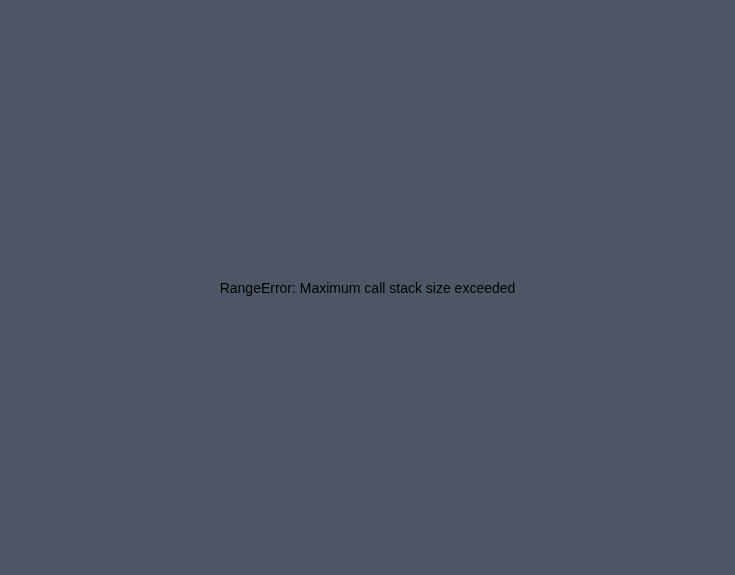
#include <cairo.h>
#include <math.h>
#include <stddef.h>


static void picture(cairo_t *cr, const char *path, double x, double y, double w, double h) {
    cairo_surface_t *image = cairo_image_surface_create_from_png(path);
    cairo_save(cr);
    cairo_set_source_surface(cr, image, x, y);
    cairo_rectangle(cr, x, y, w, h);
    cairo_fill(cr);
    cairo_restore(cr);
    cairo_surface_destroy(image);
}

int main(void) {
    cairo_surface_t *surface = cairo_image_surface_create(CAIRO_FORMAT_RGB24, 735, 575);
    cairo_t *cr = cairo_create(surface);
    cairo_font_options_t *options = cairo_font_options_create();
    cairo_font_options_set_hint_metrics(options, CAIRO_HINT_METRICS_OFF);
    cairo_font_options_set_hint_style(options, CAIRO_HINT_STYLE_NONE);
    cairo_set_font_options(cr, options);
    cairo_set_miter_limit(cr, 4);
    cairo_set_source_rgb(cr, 0.306, 0.333, 0.396);
    cairo_paint(cr);
    picture(cr, "img1.png", 220, 282, 295, 14);
    cairo_surface_write_to_png(surface, "page.png");
    cairo_font_options_destroy(options);
    cairo_destroy(cr);
    cairo_surface_destroy(surface);
    return 0;
}
